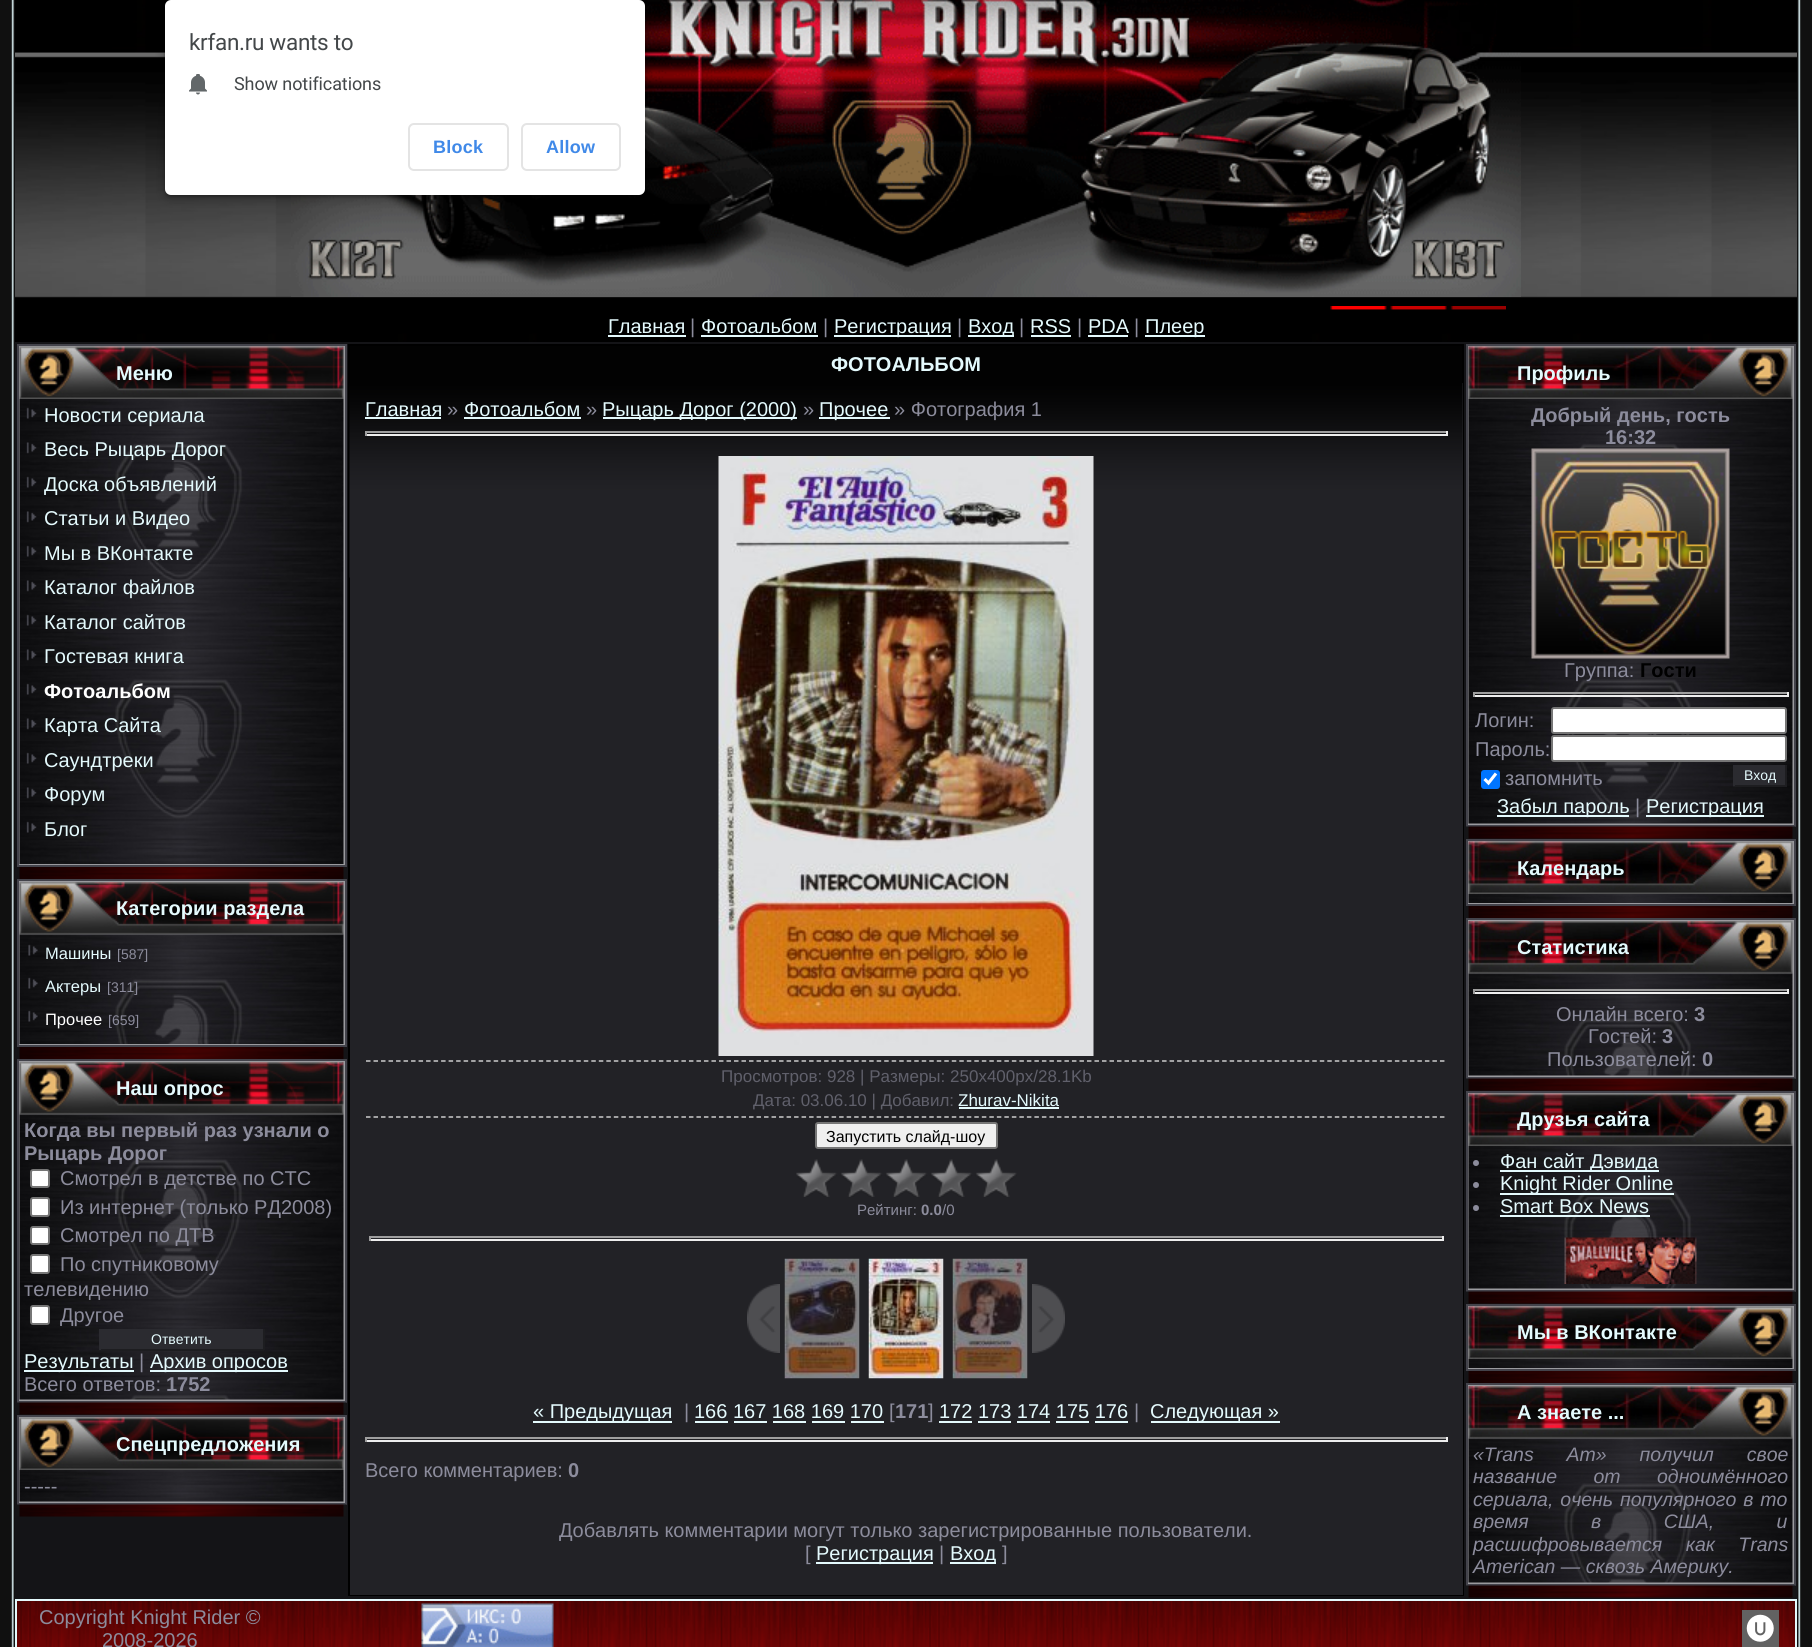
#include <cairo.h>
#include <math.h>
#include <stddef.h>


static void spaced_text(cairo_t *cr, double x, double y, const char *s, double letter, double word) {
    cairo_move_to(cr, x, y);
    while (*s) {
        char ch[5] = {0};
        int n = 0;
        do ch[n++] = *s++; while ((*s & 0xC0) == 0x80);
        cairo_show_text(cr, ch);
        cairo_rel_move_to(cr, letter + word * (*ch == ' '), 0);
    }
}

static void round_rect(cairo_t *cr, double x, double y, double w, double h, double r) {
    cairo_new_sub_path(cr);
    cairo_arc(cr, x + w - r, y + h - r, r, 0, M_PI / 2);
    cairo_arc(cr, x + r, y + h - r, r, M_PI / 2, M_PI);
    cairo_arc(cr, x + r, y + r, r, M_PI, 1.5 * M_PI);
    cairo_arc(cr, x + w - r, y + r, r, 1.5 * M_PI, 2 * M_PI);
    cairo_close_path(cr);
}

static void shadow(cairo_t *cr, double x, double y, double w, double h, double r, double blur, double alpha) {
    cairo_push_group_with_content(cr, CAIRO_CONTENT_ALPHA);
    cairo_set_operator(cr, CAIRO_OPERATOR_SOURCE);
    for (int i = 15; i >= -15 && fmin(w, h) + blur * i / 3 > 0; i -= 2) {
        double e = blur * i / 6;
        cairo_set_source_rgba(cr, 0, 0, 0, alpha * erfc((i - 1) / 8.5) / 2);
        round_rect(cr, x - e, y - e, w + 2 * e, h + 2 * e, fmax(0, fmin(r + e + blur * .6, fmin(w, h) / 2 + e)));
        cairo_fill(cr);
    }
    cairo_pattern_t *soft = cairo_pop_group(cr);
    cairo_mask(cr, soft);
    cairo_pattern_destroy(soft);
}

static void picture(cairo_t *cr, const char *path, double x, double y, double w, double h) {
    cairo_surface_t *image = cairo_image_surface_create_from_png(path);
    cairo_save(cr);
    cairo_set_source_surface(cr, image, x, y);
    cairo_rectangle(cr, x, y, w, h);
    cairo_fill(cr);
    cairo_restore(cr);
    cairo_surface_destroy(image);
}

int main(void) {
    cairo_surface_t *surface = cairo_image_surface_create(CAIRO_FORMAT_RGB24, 1812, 1647);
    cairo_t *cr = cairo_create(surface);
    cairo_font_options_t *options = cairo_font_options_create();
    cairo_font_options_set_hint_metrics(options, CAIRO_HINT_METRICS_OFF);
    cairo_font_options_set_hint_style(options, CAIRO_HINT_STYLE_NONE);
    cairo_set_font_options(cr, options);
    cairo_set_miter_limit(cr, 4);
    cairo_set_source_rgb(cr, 0.082, 0.082, 0.09);
    cairo_paint(cr);
    picture(cr, "img3.png", 15, 0, 1782, 342);
    picture(cr, "img4.png", 291, 0, 1230, 297);
    cairo_set_source_rgb(cr, 0, 0, 0);
    shadow(cr, 162, 0, 486, 201, 9, 4.5, 0.15);
    shadow(cr, 165, 2, 480, 195, 6, 1.5, 0.3);
    cairo_set_source_rgb(cr, 1, 1, 1);
    round_rect(cr, 165, 0, 480, 195, 6);
    cairo_fill(cr);
    cairo_select_font_face(cr, "Roboto", CAIRO_FONT_SLANT_NORMAL, CAIRO_FONT_WEIGHT_NORMAL);
    cairo_set_font_size(cr, 22.5);
    cairo_set_source_rgb(cr, 0.263, 0.278, 0.286);
    spaced_text(cr, 189, 50, "krfan.ru wants to", -0.3, 0);
    picture(cr, "img1.png", 189, 74, 18, 21);
    cairo_set_font_size(cr, 18);
    spaced_text(cr, 234, 90, "Show notifications", -0.1, 0);
    round_rect(cr, 409, 124, 99, 46, 5);
    cairo_set_source_rgb(cr, 0.894, 0.894, 0.894);
    cairo_stroke(cr);
    cairo_select_font_face(cr, "Liberation Sans", CAIRO_FONT_SLANT_NORMAL, CAIRO_FONT_WEIGHT_BOLD);
    cairo_set_source_rgb(cr, 0.251, 0.537, 0.91);
    spaced_text(cr, 433, 153, "Block", 0.25, 0);
    round_rect(cr, 522, 124, 98, 46, 5);
    cairo_set_source_rgb(cr, 0.894, 0.894, 0.894);
    cairo_stroke(cr);
    cairo_set_source_rgb(cr, 0.251, 0.537, 0.91);
    spaced_text(cr, 546, 153, "Allow", 0.25, 0);
    picture(cr, "img2.png", 0, 0, 15, 1647);
    picture(cr, "img5.png", 1330, 306, 176, 4);
    cairo_select_font_face(cr, "Liberation Sans", CAIRO_FONT_SLANT_NORMAL, CAIRO_FONT_WEIGHT_NORMAL);
    cairo_set_font_size(cr, 20);
    cairo_set_source_rgb(cr, 0.894, 0.98, 0.992);
    cairo_move_to(cr, 608, 333);
    cairo_show_text(cr, "Главная");
    cairo_rectangle(cr, 608, 335, 78, 2);
    cairo_fill(cr);
    cairo_set_source_rgb(cr, 0.549, 0.549, 0.612);
    cairo_move_to(cr, 690, 333);
    cairo_show_text(cr, "|");
    cairo_set_source_rgb(cr, 0.894, 0.98, 0.992);
    cairo_move_to(cr, 701, 333);
    cairo_show_text(cr, "Фотоальбом");
    cairo_rectangle(cr, 701, 335, 117, 2);
    cairo_fill(cr);
    cairo_set_source_rgb(cr, 0.549, 0.549, 0.612);
    cairo_move_to(cr, 823, 333);
    cairo_show_text(cr, "|");
    cairo_set_source_rgb(cr, 0.894, 0.98, 0.992);
    cairo_rectangle(cr, 834, 335, 117, 2);
    cairo_fill(cr);
    cairo_move_to(cr, 834, 333);
    cairo_show_text(cr, "Регистрация");
    cairo_set_source_rgb(cr, 0.549, 0.549, 0.612);
    cairo_move_to(cr, 957, 333);
    cairo_show_text(cr, "|");
    cairo_set_source_rgb(cr, 0.894, 0.98, 0.992);
    cairo_rectangle(cr, 968, 335, 46, 2);
    cairo_fill(cr);
    cairo_move_to(cr, 968, 333);
    cairo_show_text(cr, "Вход");
    cairo_set_source_rgb(cr, 0.549, 0.549, 0.612);
    cairo_move_to(cr, 1019, 333);
    cairo_show_text(cr, "|");
    cairo_set_source_rgb(cr, 0.894, 0.98, 0.992);
    cairo_move_to(cr, 1030, 333);
    cairo_show_text(cr, "RSS");
    cairo_rectangle(cr, 1031, 335, 40, 2);
    cairo_fill(cr);
    cairo_set_source_rgb(cr, 0.549, 0.549, 0.612);
    cairo_move_to(cr, 1077, 333);
    cairo_show_text(cr, "|");
    cairo_set_source_rgb(cr, 0.894, 0.98, 0.992);
    cairo_move_to(cr, 1088, 333);
    cairo_show_text(cr, "PDA");
    cairo_rectangle(cr, 1088, 335, 40, 2);
    cairo_fill(cr);
    cairo_set_source_rgb(cr, 0.549, 0.549, 0.612);
    cairo_move_to(cr, 1134, 333);
    cairo_show_text(cr, "|");
    cairo_set_source_rgb(cr, 0.894, 0.98, 0.992);
    cairo_rectangle(cr, 1145, 335, 60, 2);
    cairo_fill(cr);
    cairo_move_to(cr, 1145, 333);
    cairo_show_text(cr, "Плеер");
    cairo_set_source_rgb(cr, 0.604, 0.604, 0.62);
    cairo_rectangle(cr, 18, 345, 328, 521);
    cairo_fill_preserve(cr);
    cairo_set_source_rgb(cr, 0.263, 0.263, 0.294);
    cairo_stroke(cr);
    picture(cr, "img6.png", 19, 346, 325, 53);
    cairo_select_font_face(cr, "Liberation Sans", CAIRO_FONT_SLANT_NORMAL, CAIRO_FONT_WEIGHT_BOLD);
    cairo_set_source_rgb(cr, 0.894, 0.98, 0.992);
    cairo_move_to(cr, 116, 380);
    cairo_show_text(cr, "Меню");
    picture(cr, "img7.png", 19, 399, 325, 465);
    picture(cr, "img8.png", 26, 407, 11, 12);
    cairo_select_font_face(cr, "Liberation Sans", CAIRO_FONT_SLANT_NORMAL, CAIRO_FONT_WEIGHT_NORMAL);
    cairo_move_to(cr, 44, 422);
    cairo_show_text(cr, "Новости сериала");
    picture(cr, "img9.png", 26, 442, 11, 12);
    cairo_move_to(cr, 44, 456);
    cairo_show_text(cr, "Весь Рыцарь Дорог");
    picture(cr, "img10.png", 26, 476, 11, 12);
    cairo_move_to(cr, 44, 491);
    cairo_show_text(cr, "Доска объявлений");
    picture(cr, "img11.png", 26, 511, 11, 12);
    cairo_move_to(cr, 44, 525);
    cairo_show_text(cr, "Статьи и Видео");
    picture(cr, "img12.png", 26, 545, 11, 12);
    cairo_move_to(cr, 44, 560);
    cairo_show_text(cr, "Мы в ВКонтакте");
    picture(cr, "img13.png", 26, 580, 11, 12);
    cairo_move_to(cr, 44, 594);
    cairo_show_text(cr, "Каталог файлов");
    picture(cr, "img14.png", 26, 614, 11, 12);
    cairo_move_to(cr, 44, 629);
    cairo_show_text(cr, "Каталог сайтов");
    picture(cr, "img15.png", 26, 649, 11, 12);
    cairo_move_to(cr, 44, 663);
    cairo_show_text(cr, "Гостевая книга");
    picture(cr, "img16.png", 26, 683, 11, 12);
    cairo_select_font_face(cr, "Liberation Sans", CAIRO_FONT_SLANT_NORMAL, CAIRO_FONT_WEIGHT_BOLD);
    cairo_set_source_rgb(cr, 1, 1, 1);
    cairo_move_to(cr, 44, 698);
    cairo_show_text(cr, "Фотоальбом");
    picture(cr, "img17.png", 26, 718, 11, 12);
    cairo_select_font_face(cr, "Liberation Sans", CAIRO_FONT_SLANT_NORMAL, CAIRO_FONT_WEIGHT_NORMAL);
    cairo_set_source_rgb(cr, 0.894, 0.98, 0.992);
    cairo_move_to(cr, 44, 732);
    cairo_show_text(cr, "Карта Сайта");
    picture(cr, "img18.png", 26, 752, 11, 12);
    cairo_move_to(cr, 44, 767);
    cairo_show_text(cr, "Саундтреки");
    picture(cr, "img19.png", 26, 787, 11, 12);
    cairo_move_to(cr, 44, 801);
    cairo_show_text(cr, "Форум");
    picture(cr, "img20.png", 26, 821, 11, 12);
    cairo_move_to(cr, 44, 836);
    cairo_show_text(cr, "Блог");
    picture(cr, "img21.png", 19, 867, 325, 12);
    cairo_set_source_rgb(cr, 0.604, 0.604, 0.62);
    cairo_rectangle(cr, 18, 880, 328, 166);
    cairo_fill_preserve(cr);
    cairo_set_source_rgb(cr, 0.263, 0.263, 0.294);
    cairo_stroke(cr);
    picture(cr, "img22.png", 19, 882, 325, 53);
    cairo_select_font_face(cr, "Liberation Sans", CAIRO_FONT_SLANT_NORMAL, CAIRO_FONT_WEIGHT_BOLD);
    cairo_set_source_rgb(cr, 0.894, 0.98, 0.992);
    cairo_move_to(cr, 116, 915);
    cairo_show_text(cr, "Категории раздела");
    picture(cr, "img23.png", 19, 934, 325, 110);
    picture(cr, "img24.png", 28, 944, 10, 12);
    cairo_select_font_face(cr, "Liberation Sans", CAIRO_FONT_SLANT_NORMAL, CAIRO_FONT_WEIGHT_NORMAL);
    cairo_set_font_size(cr, 16.5);
    cairo_move_to(cr, 45, 959);
    cairo_show_text(cr, "Машины");
    cairo_set_font_size(cr, 14);
    cairo_set_source_rgb(cr, 0.549, 0.549, 0.612);
    cairo_move_to(cr, 117, 959);
    cairo_show_text(cr, "[587]");
    picture(cr, "img25.png", 28, 977, 10, 12);
    cairo_set_font_size(cr, 16.5);
    cairo_set_source_rgb(cr, 0.894, 0.98, 0.992);
    cairo_move_to(cr, 45, 992);
    cairo_show_text(cr, "Актеры");
    cairo_set_font_size(cr, 14);
    cairo_set_source_rgb(cr, 0.549, 0.549, 0.612);
    cairo_move_to(cr, 107, 992);
    cairo_show_text(cr, "[311]");
    picture(cr, "img26.png", 28, 1010, 10, 12);
    cairo_set_font_size(cr, 16.5);
    cairo_set_source_rgb(cr, 1, 1, 1);
    cairo_move_to(cr, 45, 1025);
    cairo_show_text(cr, "Прочее");
    cairo_set_font_size(cr, 14);
    cairo_set_source_rgb(cr, 0.549, 0.549, 0.612);
    cairo_move_to(cr, 108, 1025);
    cairo_show_text(cr, "[659]");
    picture(cr, "img21.png", 19, 1047, 325, 12);
    cairo_set_source_rgb(cr, 0.604, 0.604, 0.62);
    cairo_rectangle(cr, 18, 1060, 328, 342);
    cairo_fill_preserve(cr);
    cairo_set_source_rgb(cr, 0.263, 0.263, 0.294);
    cairo_stroke(cr);
    picture(cr, "img22.png", 19, 1062, 325, 53);
    cairo_select_font_face(cr, "Liberation Sans", CAIRO_FONT_SLANT_NORMAL, CAIRO_FONT_WEIGHT_BOLD);
    cairo_set_font_size(cr, 20);
    cairo_set_source_rgb(cr, 0.894, 0.98, 0.992);
    cairo_move_to(cr, 116, 1095);
    cairo_show_text(cr, "Наш опрос");
    picture(cr, "img27.png", 19, 1114, 325, 286);
    cairo_set_source_rgb(cr, 0.549, 0.549, 0.612);
    cairo_move_to(cr, 24, 1137);
    cairo_show_text(cr, "Когда вы первый раз узнали о");
    cairo_move_to(cr, 24, 1160);
    cairo_show_text(cr, "Рыцарь Дорог");
    cairo_set_source_rgb(cr, 1, 1, 1);
    round_rect(cr, 31, 1170, 18, 17, 2);
    cairo_fill_preserve(cr);
    cairo_set_source_rgb(cr, 0.463, 0.463, 0.463);
    cairo_stroke(cr);
    cairo_select_font_face(cr, "Liberation Sans", CAIRO_FONT_SLANT_NORMAL, CAIRO_FONT_WEIGHT_NORMAL);
    cairo_set_source_rgb(cr, 0.549, 0.549, 0.612);
    cairo_move_to(cr, 60, 1185);
    cairo_show_text(cr, "Смотрел в детстве по СТС");
    cairo_set_source_rgb(cr, 1, 1, 1);
    round_rect(cr, 31, 1198, 18, 18, 2);
    cairo_fill_preserve(cr);
    cairo_set_source_rgb(cr, 0.463, 0.463, 0.463);
    cairo_stroke(cr);
    cairo_set_source_rgb(cr, 0.549, 0.549, 0.612);
    cairo_move_to(cr, 60, 1214);
    cairo_show_text(cr, "Из интернет (только РД2008)");
    cairo_set_source_rgb(cr, 1, 1, 1);
    round_rect(cr, 31, 1227, 18, 17, 2);
    cairo_fill_preserve(cr);
    cairo_set_source_rgb(cr, 0.463, 0.463, 0.463);
    cairo_stroke(cr);
    cairo_set_source_rgb(cr, 0.549, 0.549, 0.612);
    cairo_move_to(cr, 60, 1242);
    cairo_show_text(cr, "Смотрел по ДТВ");
    cairo_set_source_rgb(cr, 1, 1, 1);
    round_rect(cr, 31, 1255, 18, 18, 2);
    cairo_fill_preserve(cr);
    cairo_set_source_rgb(cr, 0.463, 0.463, 0.463);
    cairo_stroke(cr);
    cairo_set_source_rgb(cr, 0.549, 0.549, 0.612);
    cairo_move_to(cr, 60, 1271);
    cairo_show_text(cr, "По спутниковому");
    cairo_move_to(cr, 24, 1296);
    cairo_show_text(cr, "телевидению");
    cairo_set_source_rgb(cr, 1, 1, 1);
    round_rect(cr, 31, 1306, 18, 18, 2);
    cairo_fill_preserve(cr);
    cairo_set_source_rgb(cr, 0.463, 0.463, 0.463);
    cairo_stroke(cr);
    cairo_set_source_rgb(cr, 0.549, 0.549, 0.612);
    cairo_move_to(cr, 60, 1322);
    cairo_show_text(cr, "Другое");
    cairo_set_source_rgb(cr, 0.169, 0.169, 0.188);
    cairo_rectangle(cr, 101, 1329, 162, 20);
    cairo_fill(cr);
    cairo_set_source_rgb(cr, 0.114, 0.114, 0.125);
    cairo_rectangle(cr, 263, 1329, 2, 21);
    cairo_fill(cr);
    cairo_rectangle(cr, 99, 1349, 165, 2);
    cairo_fill(cr);
    cairo_set_source_rgb(cr, 0.169, 0.169, 0.188);
    cairo_rectangle(cr, 99, 1329, 2, 21);
    cairo_fill(cr);
    cairo_set_font_size(cr, 14);
    cairo_set_source_rgb(cr, 0.894, 0.98, 0.992);
    cairo_move_to(cr, 151, 1344);
    cairo_show_text(cr, "Ответить");
    cairo_rectangle(cr, 24, 1370, 110, 2);
    cairo_fill(cr);
    cairo_set_font_size(cr, 20);
    cairo_move_to(cr, 24, 1368);
    cairo_show_text(cr, "Результаты");
    cairo_set_source_rgb(cr, 0.549, 0.549, 0.612);
    cairo_move_to(cr, 139, 1368);
    cairo_show_text(cr, "|");
    cairo_set_source_rgb(cr, 0.894, 0.98, 0.992);
    cairo_rectangle(cr, 150, 1370, 138, 2);
    cairo_fill(cr);
    cairo_move_to(cr, 150, 1368);
    cairo_show_text(cr, "Архив опросов");
    cairo_set_source_rgb(cr, 0.549, 0.549, 0.612);
    cairo_move_to(cr, 24, 1391);
    cairo_show_text(cr, "Всего ответов:");
    cairo_select_font_face(cr, "Liberation Sans", CAIRO_FONT_SLANT_NORMAL, CAIRO_FONT_WEIGHT_BOLD);
    cairo_move_to(cr, 166, 1391);
    cairo_show_text(cr, "1752");
    picture(cr, "img28.png", 17, 1402, 330, 13);
    cairo_set_source_rgb(cr, 0.604, 0.604, 0.62);
    cairo_rectangle(cr, 18, 1416, 328, 88);
    cairo_fill_preserve(cr);
    cairo_set_source_rgb(cr, 0.263, 0.263, 0.294);
    cairo_stroke(cr);
    picture(cr, "img6.png", 19, 1417, 325, 53);
    cairo_set_source_rgb(cr, 0.894, 0.98, 0.992);
    cairo_move_to(cr, 116, 1451);
    cairo_show_text(cr, "Спецпредложения");
    picture(cr, "img29.png", 19, 1470, 325, 32);
    cairo_select_font_face(cr, "Liberation Sans", CAIRO_FONT_SLANT_NORMAL, CAIRO_FONT_WEIGHT_NORMAL);
    cairo_set_source_rgb(cr, 0.549, 0.549, 0.612);
    cairo_move_to(cr, 24, 1493);
    cairo_show_text(cr, "-----");
    picture(cr, "img28.png", 17, 1504, 330, 13);
    cairo_rectangle(cr, 349, 345, 1114, 1250);
    cairo_set_source_rgb(cr, 0, 0, 0);
    cairo_stroke(cr);
    cairo_set_source_rgb(cr, 0.008, 0.008, 0.008);
    cairo_rectangle(cr, 350, 346, 1112, 37);
    cairo_fill(cr);
    cairo_select_font_face(cr, "Liberation Sans", CAIRO_FONT_SLANT_NORMAL, CAIRO_FONT_WEIGHT_BOLD);
    cairo_set_source_rgb(cr, 0.894, 0.98, 0.992);
    cairo_move_to(cr, 831, 371);
    cairo_show_text(cr, "ФОТОАЛЬБОМ");
    cairo_set_source_rgb(cr, 0.133, 0.133, 0.149);
    cairo_rectangle(cr, 350, 383, 1113, 1212);
    cairo_fill(cr);
    picture(cr, "img30.png", 349, 383, 1114, 195);
    cairo_select_font_face(cr, "Liberation Sans", CAIRO_FONT_SLANT_NORMAL, CAIRO_FONT_WEIGHT_NORMAL);
    cairo_set_source_rgb(cr, 0.894, 0.98, 0.992);
    cairo_move_to(cr, 365, 416);
    cairo_show_text(cr, "Главная");
    cairo_rectangle(cr, 365, 417, 76, 2);
    cairo_fill(cr);
    cairo_set_source_rgb(cr, 0.549, 0.549, 0.612);
    cairo_move_to(cr, 447, 416);
    cairo_show_text(cr, "»");
    cairo_set_source_rgb(cr, 0.894, 0.98, 0.992);
    cairo_move_to(cr, 464, 416);
    cairo_show_text(cr, "Фотоальбом");
    cairo_rectangle(cr, 464, 417, 117, 2);
    cairo_fill(cr);
    cairo_set_source_rgb(cr, 0.549, 0.549, 0.612);
    cairo_move_to(cr, 586, 416);
    cairo_show_text(cr, "»");
    cairo_set_source_rgb(cr, 0.894, 0.98, 0.992);
    cairo_rectangle(cr, 603, 417, 194, 2);
    cairo_fill(cr);
    cairo_move_to(cr, 602, 416);
    cairo_show_text(cr, "Рыцарь Дорог (2000)");
    cairo_set_source_rgb(cr, 0.549, 0.549, 0.612);
    cairo_move_to(cr, 803, 416);
    cairo_show_text(cr, "»");
    cairo_set_source_rgb(cr, 0.894, 0.98, 0.992);
    cairo_rectangle(cr, 819, 417, 71, 2);
    cairo_fill(cr);
    cairo_move_to(cr, 819, 416);
    cairo_show_text(cr, "Прочее");
    cairo_set_source_rgb(cr, 0.549, 0.549, 0.612);
    cairo_move_to(cr, 894, 416);
    cairo_show_text(cr, "» Фотография 1");
    cairo_set_source_rgb(cr, 0.624, 0.624, 0.624);
    cairo_rectangle(cr, 365, 431, 1083, 2);
    cairo_fill(cr);
    cairo_set_source_rgb(cr, 0.933, 0.933, 0.933);
    cairo_rectangle(cr, 1446, 431, 2, 5);
    cairo_fill(cr);
    cairo_rectangle(cr, 365, 434, 1083, 2);
    cairo_fill(cr);
    cairo_set_source_rgb(cr, 0.624, 0.624, 0.624);
    cairo_rectangle(cr, 365, 431, 2, 5);
    cairo_fill(cr);
    picture(cr, "img31.png", 718, 456, 376, 600);
    cairo_new_path(cr);
    cairo_move_to(cr, 366, 1061);
    cairo_line_to(cr, 1446, 1061);
    cairo_set_source_rgb(cr, 0.8, 0.8, 0.8);
    cairo_set_line_width(cr, 1.5);
    cairo_set_dash(cr, (double[]){4.5, 3.01}, 2, 0);
    cairo_stroke(cr);
    cairo_new_path(cr);
    cairo_move_to(cr, 366, 1117);
    cairo_line_to(cr, 1446, 1117);
    cairo_stroke(cr);
    cairo_set_font_size(cr, 17);
    cairo_set_source_rgb(cr, 0.376, 0.376, 0.42);
    cairo_move_to(cr, 721, 1082);
    cairo_show_text(cr, "Просмотров: 928 | Размеры: 250x400px/28.1Kb");
    cairo_move_to(cr, 753, 1106);
    cairo_show_text(cr, "Дата: 03.06.10 | Добавил:");
    cairo_set_source_rgb(cr, 0.894, 0.98, 0.992);
    cairo_move_to(cr, 958, 1106);
    cairo_show_text(cr, "Zhurav-Nikita");
    cairo_rectangle(cr, 959, 1107, 100, 2);
    cairo_fill(cr);
    cairo_set_source_rgb(cr, 0.937, 0.937, 0.937);
    round_rect(cr, 816, 1123, 181, 25, 2);
    cairo_fill_preserve(cr);
    cairo_set_source_rgb(cr, 0.463, 0.463, 0.463);
    cairo_set_line_width(cr, 2);
    cairo_set_dash(cr, NULL, 0, 0);
    cairo_stroke(cr);
    cairo_set_font_size(cr, 16);
    cairo_set_source_rgb(cr, 0, 0, 0);
    cairo_move_to(cr, 826, 1142);
    cairo_show_text(cr, "Запустить слайд-шоу");
    picture(cr, "img32.png", 796, 1159, 221, 38);
    cairo_set_font_size(cr, 15);
    cairo_set_source_rgb(cr, 0.549, 0.549, 0.612);
    cairo_move_to(cr, 857, 1215);
    cairo_show_text(cr, "Рейтинг:");
    cairo_select_font_face(cr, "Liberation Sans", CAIRO_FONT_SLANT_NORMAL, CAIRO_FONT_WEIGHT_BOLD);
    cairo_move_to(cr, 921, 1215);
    cairo_show_text(cr, "0.0");
    cairo_select_font_face(cr, "Liberation Sans", CAIRO_FONT_SLANT_NORMAL, CAIRO_FONT_WEIGHT_NORMAL);
    cairo_move_to(cr, 942, 1215);
    cairo_show_text(cr, "/0");
    cairo_set_source_rgb(cr, 0.624, 0.624, 0.624);
    cairo_rectangle(cr, 369, 1236, 1074, 2);
    cairo_fill(cr);
    cairo_set_source_rgb(cr, 0.933, 0.933, 0.933);
    cairo_rectangle(cr, 1442, 1236, 2, 5);
    cairo_fill(cr);
    cairo_rectangle(cr, 369, 1239, 1074, 2);
    cairo_fill(cr);
    cairo_set_source_rgb(cr, 0.624, 0.624, 0.624);
    cairo_rectangle(cr, 369, 1236, 2, 5);
    cairo_fill(cr);
    picture(cr, "img33.png", 747, 1284, 33, 69);
    picture(cr, "img34.png", 784, 1258, 76, 121);
    picture(cr, "img35.png", 868, 1258, 76, 121);
    picture(cr, "img36.png", 952, 1258, 76, 121);
    picture(cr, "img37.png", 1032, 1284, 33, 69);
    cairo_set_source_rgb(cr, 0.894, 0.98, 0.992);
    cairo_rectangle(cr, 533, 1421, 139, 2);
    cairo_fill(cr);
    cairo_set_font_size(cr, 20);
    cairo_move_to(cr, 533, 1418);
    cairo_show_text(cr, "« Предыдущая");
    cairo_set_source_rgb(cr, 0.549, 0.549, 0.612);
    cairo_move_to(cr, 684, 1418);
    cairo_show_text(cr, "|");
    cairo_set_source_rgb(cr, 0.894, 0.98, 0.992);
    cairo_move_to(cr, 694, 1418);
    cairo_show_text(cr, "166 167 168 169 170");
    cairo_rectangle(cr, 695, 1421, 33, 2);
    cairo_fill(cr);
    cairo_set_source_rgb(cr, 0.549, 0.549, 0.612);
    cairo_move_to(cr, 889, 1418);
    cairo_show_text(cr, "[");
    cairo_select_font_face(cr, "Liberation Sans", CAIRO_FONT_SLANT_NORMAL, CAIRO_FONT_WEIGHT_BOLD);
    cairo_move_to(cr, 895, 1418);
    cairo_show_text(cr, "171");
    cairo_select_font_face(cr, "Liberation Sans", CAIRO_FONT_SLANT_NORMAL, CAIRO_FONT_WEIGHT_NORMAL);
    cairo_move_to(cr, 928, 1418);
    cairo_show_text(cr, "]");
    cairo_set_source_rgb(cr, 0.894, 0.98, 0.992);
    cairo_move_to(cr, 939, 1418);
    cairo_show_text(cr, "172 173 174 175 176");
    cairo_rectangle(cr, 939, 1421, 33, 2);
    cairo_fill(cr);
    cairo_set_source_rgb(cr, 0.549, 0.549, 0.612);
    cairo_move_to(cr, 1134, 1418);
    cairo_show_text(cr, "|");
    cairo_set_source_rgb(cr, 0.894, 0.98, 0.992);
    cairo_rectangle(cr, 1151, 1421, 129, 2);
    cairo_fill(cr);
    cairo_move_to(cr, 1150, 1418);
    cairo_show_text(cr, "Следующая »");
    cairo_rectangle(cr, 734, 1421, 33, 2);
    cairo_fill(cr);
    cairo_rectangle(cr, 773, 1421, 33, 2);
    cairo_fill(cr);
    cairo_rectangle(cr, 812, 1421, 33, 2);
    cairo_fill(cr);
    cairo_rectangle(cr, 851, 1421, 33, 2);
    cairo_fill(cr);
    cairo_rectangle(cr, 978, 1421, 33, 2);
    cairo_fill(cr);
    cairo_rectangle(cr, 1017, 1421, 33, 2);
    cairo_fill(cr);
    cairo_rectangle(cr, 1056, 1421, 33, 2);
    cairo_fill(cr);
    cairo_rectangle(cr, 1095, 1421, 33, 2);
    cairo_fill(cr);
    cairo_set_source_rgb(cr, 0.624, 0.624, 0.624);
    cairo_rectangle(cr, 365, 1437, 1083, 2);
    cairo_fill(cr);
    cairo_set_source_rgb(cr, 0.933, 0.933, 0.933);
    cairo_rectangle(cr, 1446, 1437, 2, 5);
    cairo_fill(cr);
    cairo_rectangle(cr, 365, 1440, 1083, 2);
    cairo_fill(cr);
    cairo_set_source_rgb(cr, 0.624, 0.624, 0.624);
    cairo_rectangle(cr, 365, 1437, 2, 5);
    cairo_fill(cr);
    cairo_set_source_rgb(cr, 0.549, 0.549, 0.612);
    cairo_move_to(cr, 365, 1477);
    cairo_show_text(cr, "Всего комментариев:");
    cairo_select_font_face(cr, "Liberation Sans", CAIRO_FONT_SLANT_NORMAL, CAIRO_FONT_WEIGHT_BOLD);
    cairo_move_to(cr, 568, 1477);
    cairo_show_text(cr, "0");
    cairo_select_font_face(cr, "Liberation Sans", CAIRO_FONT_SLANT_NORMAL, CAIRO_FONT_WEIGHT_NORMAL);
    cairo_move_to(cr, 559, 1537);
    cairo_show_text(cr, "Добавлять комментарии могут только зарегистрированные пользователи.");
    cairo_move_to(cr, 805, 1560);
    cairo_show_text(cr, "[");
    cairo_set_source_rgb(cr, 0.894, 0.98, 0.992);
    cairo_rectangle(cr, 816, 1562, 117, 2);
    cairo_fill(cr);
    cairo_move_to(cr, 816, 1560);
    cairo_show_text(cr, "Регистрация");
    cairo_set_source_rgb(cr, 0.549, 0.549, 0.612);
    cairo_move_to(cr, 939, 1560);
    cairo_show_text(cr, "|");
    cairo_set_source_rgb(cr, 0.894, 0.98, 0.992);
    cairo_rectangle(cr, 950, 1562, 46, 2);
    cairo_fill(cr);
    cairo_move_to(cr, 950, 1560);
    cairo_show_text(cr, "Вход");
    cairo_set_source_rgb(cr, 0.549, 0.549, 0.612);
    cairo_move_to(cr, 1002, 1560);
    cairo_show_text(cr, "]");
    cairo_set_source_rgb(cr, 0.604, 0.604, 0.62);
    cairo_rectangle(cr, 1467, 345, 328, 481);
    cairo_fill_preserve(cr);
    cairo_set_source_rgb(cr, 0.263, 0.263, 0.294);
    cairo_stroke(cr);
    picture(cr, "img38.png", 1468, 346, 325, 53);
    cairo_select_font_face(cr, "Liberation Sans", CAIRO_FONT_SLANT_NORMAL, CAIRO_FONT_WEIGHT_BOLD);
    cairo_set_source_rgb(cr, 0.894, 0.98, 0.992);
    cairo_move_to(cr, 1517, 380);
    cairo_show_text(cr, "Профиль");
    picture(cr, "img39.png", 1468, 399, 325, 425);
    cairo_set_source_rgb(cr, 0.549, 0.549, 0.612);
    cairo_move_to(cr, 1531, 422);
    cairo_show_text(cr, "Добрый день, гость");
    cairo_move_to(cr, 1605, 444);
    cairo_show_text(cr, "16:32");
    picture(cr, "img40.png", 1531, 448, 199, 211);
    cairo_select_font_face(cr, "Liberation Sans", CAIRO_FONT_SLANT_NORMAL, CAIRO_FONT_WEIGHT_NORMAL);
    cairo_move_to(cr, 1564, 677);
    cairo_show_text(cr, "Группа:");
    cairo_select_font_face(cr, "Liberation Sans", CAIRO_FONT_SLANT_NORMAL, CAIRO_FONT_WEIGHT_BOLD);
    cairo_set_source_rgb(cr, 0, 0, 0);
    cairo_move_to(cr, 1640, 677);
    cairo_show_text(cr, "Гости");
    cairo_set_source_rgb(cr, 0.624, 0.624, 0.624);
    cairo_rectangle(cr, 1473, 692, 315, 2);
    cairo_fill(cr);
    cairo_set_source_rgb(cr, 0.933, 0.933, 0.933);
    cairo_rectangle(cr, 1787, 692, 2, 5);
    cairo_fill(cr);
    cairo_rectangle(cr, 1473, 695, 315, 2);
    cairo_fill(cr);
    cairo_set_source_rgb(cr, 0.624, 0.624, 0.624);
    cairo_rectangle(cr, 1473, 692, 2, 5);
    cairo_fill(cr);
    cairo_select_font_face(cr, "Liberation Sans", CAIRO_FONT_SLANT_NORMAL, CAIRO_FONT_WEIGHT_NORMAL);
    cairo_set_source_rgb(cr, 0.549, 0.549, 0.612);
    cairo_move_to(cr, 1475, 727);
    cairo_show_text(cr, "Логин:");
    cairo_set_source_rgb(cr, 1, 1, 1);
    round_rect(cr, 1552, 708, 234, 25, 2);
    cairo_fill_preserve(cr);
    cairo_set_source_rgb(cr, 0.463, 0.463, 0.463);
    cairo_stroke(cr);
    cairo_set_source_rgb(cr, 0.549, 0.549, 0.612);
    cairo_move_to(cr, 1475, 756);
    cairo_show_text(cr, "Пароль:");
    cairo_set_source_rgb(cr, 1, 1, 1);
    round_rect(cr, 1552, 736, 234, 25, 2);
    cairo_fill_preserve(cr);
    cairo_set_source_rgb(cr, 0.463, 0.463, 0.463);
    cairo_stroke(cr);
    cairo_set_source_rgb(cr, 0, 0.459, 1);
    round_rect(cr, 1481, 770, 19, 19, 3);
    cairo_fill(cr);
    cairo_new_path(cr);
    cairo_move_to(cr, 1484.5, 779);
    cairo_line_to(cr, 1488.5, 783);
    cairo_line_to(cr, 1496, 773.5);
    cairo_set_source_rgb(cr, 1, 1, 1);
    cairo_set_line_width(cr, 3.1);
    cairo_stroke(cr);
    cairo_set_source_rgb(cr, 0.549, 0.549, 0.612);
    cairo_move_to(cr, 1505, 785);
    cairo_show_text(cr, "запомнить");
    cairo_set_source_rgb(cr, 0.169, 0.169, 0.188);
    cairo_rectangle(cr, 1735, 765, 50, 20);
    cairo_fill(cr);
    cairo_set_source_rgb(cr, 0.114, 0.114, 0.125);
    cairo_rectangle(cr, 1785, 765, 2, 21);
    cairo_fill(cr);
    cairo_rectangle(cr, 1733, 785, 54, 2);
    cairo_fill(cr);
    cairo_set_source_rgb(cr, 0.169, 0.169, 0.188);
    cairo_rectangle(cr, 1733, 765, 2, 21);
    cairo_fill(cr);
    cairo_set_font_size(cr, 14);
    cairo_set_source_rgb(cr, 0.894, 0.98, 0.992);
    cairo_move_to(cr, 1744, 780);
    cairo_show_text(cr, "Вход");
    cairo_rectangle(cr, 1497, 815, 132, 2);
    cairo_fill(cr);
    cairo_set_font_size(cr, 20);
    cairo_move_to(cr, 1497, 813);
    cairo_show_text(cr, "Забыл пароль");
    cairo_set_source_rgb(cr, 0.549, 0.549, 0.612);
    cairo_move_to(cr, 1635, 813);
    cairo_show_text(cr, "|");
    cairo_set_source_rgb(cr, 0.894, 0.98, 0.992);
    cairo_rectangle(cr, 1646, 815, 118, 2);
    cairo_fill(cr);
    cairo_move_to(cr, 1646, 813);
    cairo_show_text(cr, "Регистрация");
    picture(cr, "img41.png", 1466, 826, 330, 13);
    cairo_set_source_rgb(cr, 0.604, 0.604, 0.62);
    cairo_rectangle(cr, 1467, 840, 328, 65);
    cairo_fill_preserve(cr);
    cairo_set_source_rgb(cr, 0.263, 0.263, 0.294);
    cairo_set_line_width(cr, 2);
    cairo_stroke(cr);
    picture(cr, "img38.png", 1468, 841, 325, 53);
    cairo_select_font_face(cr, "Liberation Sans", CAIRO_FONT_SLANT_NORMAL, CAIRO_FONT_WEIGHT_BOLD);
    cairo_set_source_rgb(cr, 0.894, 0.98, 0.992);
    cairo_move_to(cr, 1517, 875);
    cairo_show_text(cr, "Календарь");
    picture(cr, "img42.png", 1468, 894, 325, 9);
    picture(cr, "img43.png", 1468, 906, 325, 12);
    cairo_set_source_rgb(cr, 0.604, 0.604, 0.62);
    cairo_rectangle(cr, 1467, 919, 328, 159);
    cairo_fill_preserve(cr);
    cairo_set_source_rgb(cr, 0.263, 0.263, 0.294);
    cairo_stroke(cr);
    picture(cr, "img44.png", 1468, 921, 325, 53);
    cairo_set_source_rgb(cr, 0.894, 0.98, 0.992);
    cairo_move_to(cr, 1517, 954);
    cairo_show_text(cr, "Статистика");
    picture(cr, "img45.png", 1468, 973, 325, 103);
    cairo_set_source_rgb(cr, 0.624, 0.624, 0.624);
    cairo_rectangle(cr, 1473, 989, 315, 2);
    cairo_fill(cr);
    cairo_set_source_rgb(cr, 0.933, 0.933, 0.933);
    cairo_rectangle(cr, 1787, 989, 2, 5);
    cairo_fill(cr);
    cairo_rectangle(cr, 1473, 992, 315, 2);
    cairo_fill(cr);
    cairo_set_source_rgb(cr, 0.624, 0.624, 0.624);
    cairo_rectangle(cr, 1473, 989, 2, 5);
    cairo_fill(cr);
    cairo_select_font_face(cr, "Liberation Sans", CAIRO_FONT_SLANT_NORMAL, CAIRO_FONT_WEIGHT_NORMAL);
    cairo_set_source_rgb(cr, 0.549, 0.549, 0.612);
    cairo_move_to(cr, 1556, 1021);
    cairo_show_text(cr, "Онлайн всего:");
    cairo_select_font_face(cr, "Liberation Sans", CAIRO_FONT_SLANT_NORMAL, CAIRO_FONT_WEIGHT_BOLD);
    cairo_move_to(cr, 1694, 1021);
    cairo_show_text(cr, "3");
    cairo_select_font_face(cr, "Liberation Sans", CAIRO_FONT_SLANT_NORMAL, CAIRO_FONT_WEIGHT_NORMAL);
    cairo_move_to(cr, 1588, 1043);
    cairo_show_text(cr, "Гостей:");
    cairo_select_font_face(cr, "Liberation Sans", CAIRO_FONT_SLANT_NORMAL, CAIRO_FONT_WEIGHT_BOLD);
    cairo_move_to(cr, 1662, 1043);
    cairo_show_text(cr, "3");
    cairo_select_font_face(cr, "Liberation Sans", CAIRO_FONT_SLANT_NORMAL, CAIRO_FONT_WEIGHT_NORMAL);
    cairo_move_to(cr, 1547, 1066);
    cairo_show_text(cr, "Пользователей:");
    cairo_select_font_face(cr, "Liberation Sans", CAIRO_FONT_SLANT_NORMAL, CAIRO_FONT_WEIGHT_BOLD);
    cairo_move_to(cr, 1702, 1066);
    cairo_show_text(cr, "0");
    picture(cr, "img41.png", 1466, 1078, 330, 13);
    cairo_set_source_rgb(cr, 0.604, 0.604, 0.62);
    cairo_rectangle(cr, 1467, 1092, 328, 199);
    cairo_fill_preserve(cr);
    cairo_set_source_rgb(cr, 0.263, 0.263, 0.294);
    cairo_stroke(cr);
    picture(cr, "img38.png", 1468, 1093, 325, 53);
    cairo_set_source_rgb(cr, 0.894, 0.98, 0.992);
    cairo_move_to(cr, 1517, 1126);
    cairo_show_text(cr, "Друзья сайта");
    picture(cr, "img46.png", 1468, 1146, 325, 143);
    cairo_set_source_rgb(cr, 0.549, 0.549, 0.612);
    cairo_arc(cr, 1476, 1163, 3, 0, 2 * M_PI);
    cairo_fill(cr);
    cairo_set_source_rgb(cr, 0.894, 0.98, 0.992);
    cairo_rectangle(cr, 1500, 1170, 159, 2);
    cairo_fill(cr);
    cairo_select_font_face(cr, "Liberation Sans", CAIRO_FONT_SLANT_NORMAL, CAIRO_FONT_WEIGHT_NORMAL);
    cairo_move_to(cr, 1500, 1168);
    cairo_show_text(cr, "Фан сайт Дэвида");
    cairo_set_source_rgb(cr, 0.549, 0.549, 0.612);
    cairo_new_path(cr);
    cairo_arc(cr, 1476, 1185, 3, 0, 2 * M_PI);
    cairo_fill(cr);
    cairo_set_source_rgb(cr, 0.894, 0.98, 0.992);
    cairo_rectangle(cr, 1500, 1193, 174, 2);
    cairo_fill(cr);
    cairo_move_to(cr, 1500, 1190);
    cairo_show_text(cr, "Knight Rider Online");
    cairo_set_source_rgb(cr, 0.549, 0.549, 0.612);
    cairo_new_path(cr);
    cairo_arc(cr, 1476, 1208, 3, 0, 2 * M_PI);
    cairo_fill(cr);
    cairo_set_source_rgb(cr, 0.894, 0.98, 0.992);
    cairo_move_to(cr, 1500, 1213);
    cairo_show_text(cr, "Smart Box News");
    cairo_rectangle(cr, 1500, 1215, 150, 2);
    cairo_fill(cr);
    picture(cr, "img47.png", 1564, 1237, 133, 47);
    picture(cr, "img41.png", 1466, 1291, 330, 13);
    cairo_set_source_rgb(cr, 0.604, 0.604, 0.62);
    cairo_rectangle(cr, 1467, 1305, 328, 65);
    cairo_fill_preserve(cr);
    cairo_set_source_rgb(cr, 0.263, 0.263, 0.294);
    cairo_stroke(cr);
    picture(cr, "img38.png", 1468, 1306, 325, 53);
    cairo_select_font_face(cr, "Liberation Sans", CAIRO_FONT_SLANT_NORMAL, CAIRO_FONT_WEIGHT_BOLD);
    cairo_set_source_rgb(cr, 0.894, 0.98, 0.992);
    cairo_move_to(cr, 1517, 1339);
    cairo_show_text(cr, "Мы в ВКонтакте");
    picture(cr, "img48.png", 1468, 1359, 325, 9);
    picture(cr, "img43.png", 1468, 1371, 325, 12);
    cairo_set_source_rgb(cr, 0.604, 0.604, 0.62);
    cairo_rectangle(cr, 1467, 1384, 328, 201);
    cairo_fill_preserve(cr);
    cairo_set_source_rgb(cr, 0.263, 0.263, 0.294);
    cairo_stroke(cr);
    picture(cr, "img44.png", 1468, 1386, 325, 53);
    cairo_set_source_rgb(cr, 0.894, 0.98, 0.992);
    cairo_move_to(cr, 1517, 1419);
    cairo_show_text(cr, "А знаете ...");
    picture(cr, "img49.png", 1468, 1438, 325, 145);
    cairo_select_font_face(cr, "Liberation Sans", CAIRO_FONT_SLANT_ITALIC, CAIRO_FONT_WEIGHT_NORMAL);
    cairo_set_font_size(cr, 19.5);
    cairo_set_source_rgb(cr, 0.549, 0.549, 0.612);
    spaced_text(cr, 1473, 1461, "«Trans Am» получил свое", 0, 27.5);
    spaced_text(cr, 1473, 1483, "название от одноимённого", 0, 31);
    spaced_text(cr, 1473, 1506, "сериала, очень популярного в то", 0, 1.5);
    spaced_text(cr, 1473, 1528, "время в США, и", 0, 57);
    spaced_text(cr, 1473, 1551, "расшифровывается как Trans", 0, 18);
    cairo_move_to(cr, 1473, 1573);
    cairo_show_text(cr, "American — сквозь Америку.");
    picture(cr, "img41.png", 1466, 1585, 330, 13);
    picture(cr, "img50.png", 1797, 0, 15, 1647);
    picture(cr, "img51.png", 17, 1601, 1778, 46);
    cairo_rectangle(cr, 16, 1600, 1780, 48);
    cairo_set_source_rgb(cr, 0.894, 0.98, 0.992);
    cairo_stroke(cr);
    cairo_select_font_face(cr, "Liberation Sans", CAIRO_FONT_SLANT_NORMAL, CAIRO_FONT_WEIGHT_NORMAL);
    cairo_set_font_size(cr, 20);
    cairo_set_source_rgb(cr, 0.549, 0.549, 0.612);
    cairo_move_to(cr, 39, 1624);
    cairo_show_text(cr, "Copyright Knight Rider ©");
    cairo_move_to(cr, 102, 1647);
    cairo_show_text(cr, "2008-2026");
    picture(cr, "img52.png", 421, 1603, 133, 44);
    picture(cr, "img53.png", 1742, 1610, 37, 37);
    cairo_surface_write_to_png(surface, "page.png");
    cairo_font_options_destroy(options);
    cairo_destroy(cr);
    cairo_surface_destroy(surface);
    return 0;
}
